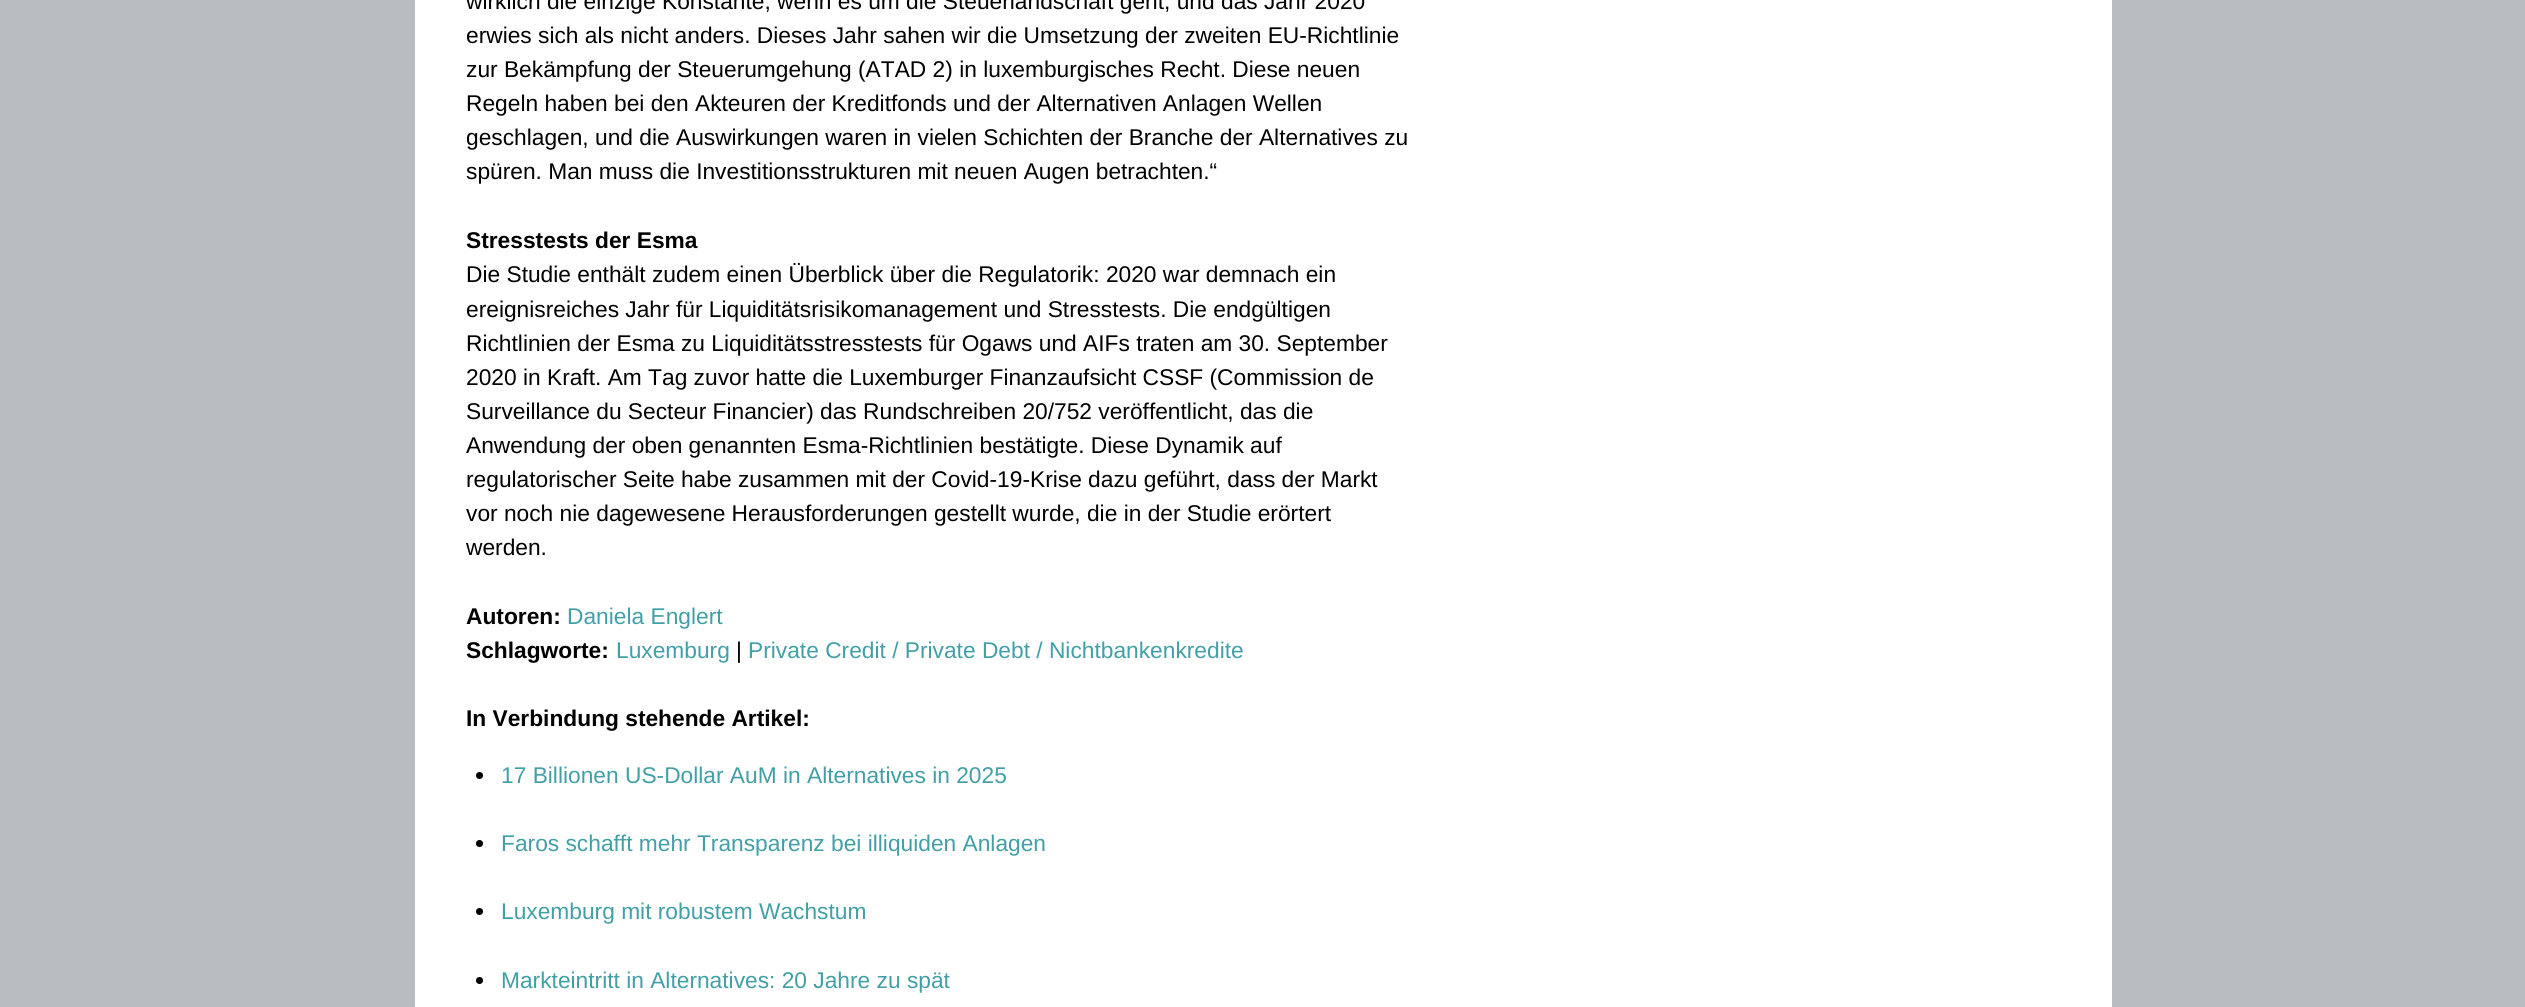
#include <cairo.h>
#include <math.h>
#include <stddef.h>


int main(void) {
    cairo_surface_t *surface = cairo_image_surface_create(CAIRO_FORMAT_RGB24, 2525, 1007);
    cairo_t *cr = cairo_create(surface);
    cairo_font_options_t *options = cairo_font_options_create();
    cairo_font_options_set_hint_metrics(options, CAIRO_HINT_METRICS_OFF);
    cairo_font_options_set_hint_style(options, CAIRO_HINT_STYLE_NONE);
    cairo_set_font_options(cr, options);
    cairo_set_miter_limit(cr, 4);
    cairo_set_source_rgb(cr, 0.729, 0.741, 0.749);
    cairo_paint(cr);
    cairo_set_source_rgb(cr, 1, 1, 1);
    cairo_rectangle(cr, 415, 0, 1697, 1007);
    cairo_fill(cr);
    cairo_select_font_face(cr, "Liberation Sans", CAIRO_FONT_SLANT_NORMAL, CAIRO_FONT_WEIGHT_NORMAL);
    cairo_set_font_size(cr, 22.75);
    cairo_set_source_rgb(cr, 0, 0, 0);
    cairo_move_to(cr, 466, 9);
    cairo_show_text(cr, "wirklich die einzige Konstante, wenn es um die Steuerlandschaft geht, und das Jahr 2020");
    cairo_move_to(cr, 466, 43);
    cairo_show_text(cr, "erwies sich als nicht anders. Dieses Jahr sahen wir die Umsetzung der zweiten EU-Richtlinie");
    cairo_move_to(cr, 466, 77);
    cairo_show_text(cr, "zur Bekämpfung der Steuerumgehung (ATAD 2) in luxemburgisches Recht. Diese neuen");
    cairo_move_to(cr, 466, 111);
    cairo_show_text(cr, "Regeln haben bei den Akteuren der Kreditfonds und der Alternativen Anlagen Wellen");
    cairo_move_to(cr, 466, 145);
    cairo_show_text(cr, "geschlagen, und die Auswirkungen waren in vielen Schichten der Branche der Alternatives zu");
    cairo_move_to(cr, 466, 179);
    cairo_show_text(cr, "spüren. Man muss die Investitionsstrukturen mit neuen Augen betrachten.“");
    cairo_select_font_face(cr, "Liberation Sans", CAIRO_FONT_SLANT_NORMAL, CAIRO_FONT_WEIGHT_BOLD);
    cairo_move_to(cr, 466, 248);
    cairo_show_text(cr, "Stresstests der Esma");
    cairo_select_font_face(cr, "Liberation Sans", CAIRO_FONT_SLANT_NORMAL, CAIRO_FONT_WEIGHT_NORMAL);
    cairo_move_to(cr, 466, 282);
    cairo_show_text(cr, "Die Studie enthält zudem einen Überblick über die Regulatorik: 2020 war demnach ein");
    cairo_move_to(cr, 466, 317);
    cairo_show_text(cr, "ereignisreiches Jahr für Liquiditätsrisikomanagement und Stresstests. Die endgültigen");
    cairo_move_to(cr, 466, 351);
    cairo_show_text(cr, "Richtlinien der Esma zu Liquiditätsstresstests für Ogaws und AIFs traten am 30. September");
    cairo_move_to(cr, 466, 385);
    cairo_show_text(cr, "2020 in Kraft. Am Tag zuvor hatte die Luxemburger Finanzaufsicht CSSF (Commission de");
    cairo_move_to(cr, 466, 419);
    cairo_show_text(cr, "Surveillance du Secteur Financier) das Rundschreiben 20/752 veröffentlicht, das die");
    cairo_move_to(cr, 466, 453);
    cairo_show_text(cr, "Anwendung der oben genannten Esma-Richtlinien bestätigte. Diese Dynamik auf");
    cairo_move_to(cr, 466, 487);
    cairo_show_text(cr, "regulatorischer Seite habe zusammen mit der Covid-19-Krise dazu geführt, dass der Markt");
    cairo_move_to(cr, 466, 521);
    cairo_show_text(cr, "vor noch nie dagewesene Herausforderungen gestellt wurde, die in der Studie erörtert");
    cairo_move_to(cr, 466, 555);
    cairo_show_text(cr, "werden.");
    cairo_select_font_face(cr, "Liberation Sans", CAIRO_FONT_SLANT_NORMAL, CAIRO_FONT_WEIGHT_BOLD);
    cairo_move_to(cr, 466, 624);
    cairo_show_text(cr, "Autoren:");
    cairo_select_font_face(cr, "Liberation Sans", CAIRO_FONT_SLANT_NORMAL, CAIRO_FONT_WEIGHT_NORMAL);
    cairo_set_source_rgb(cr, 0.263, 0.624, 0.651);
    cairo_move_to(cr, 567, 624);
    cairo_show_text(cr, "Daniela Englert");
    cairo_select_font_face(cr, "Liberation Sans", CAIRO_FONT_SLANT_NORMAL, CAIRO_FONT_WEIGHT_BOLD);
    cairo_set_source_rgb(cr, 0, 0, 0);
    cairo_move_to(cr, 466, 658);
    cairo_show_text(cr, "Schlagworte:");
    cairo_select_font_face(cr, "Liberation Sans", CAIRO_FONT_SLANT_NORMAL, CAIRO_FONT_WEIGHT_NORMAL);
    cairo_set_source_rgb(cr, 0.263, 0.624, 0.651);
    cairo_move_to(cr, 616, 658);
    cairo_show_text(cr, "Luxemburg");
    cairo_set_source_rgb(cr, 0, 0, 0);
    cairo_move_to(cr, 736, 658);
    cairo_show_text(cr, "|");
    cairo_set_source_rgb(cr, 0.263, 0.624, 0.651);
    cairo_move_to(cr, 748, 658);
    cairo_show_text(cr, "Private Credit / Private Debt / Nichtbankenkredite");
    cairo_select_font_face(cr, "Liberation Sans", CAIRO_FONT_SLANT_NORMAL, CAIRO_FONT_WEIGHT_BOLD);
    cairo_set_source_rgb(cr, 0, 0, 0);
    cairo_move_to(cr, 466, 726);
    cairo_show_text(cr, "In Verbindung stehende Artikel:");
    cairo_new_path(cr);
    cairo_arc(cr, 479.5, 775.5, 3.5, 0, 2 * M_PI);
    cairo_fill(cr);
    cairo_select_font_face(cr, "Liberation Sans", CAIRO_FONT_SLANT_NORMAL, CAIRO_FONT_WEIGHT_NORMAL);
    cairo_set_source_rgb(cr, 0.263, 0.624, 0.651);
    cairo_move_to(cr, 501, 783);
    cairo_show_text(cr, "17 Billionen US-Dollar AuM in Alternatives in 2025");
    cairo_set_source_rgb(cr, 0, 0, 0);
    cairo_new_path(cr);
    cairo_arc(cr, 479.5, 843.5, 3.5, 0, 2 * M_PI);
    cairo_fill(cr);
    cairo_set_source_rgb(cr, 0.263, 0.624, 0.651);
    cairo_move_to(cr, 501, 851);
    cairo_show_text(cr, "Faros schafft mehr Transparenz bei illiquiden Anlagen");
    cairo_set_source_rgb(cr, 0, 0, 0);
    cairo_new_path(cr);
    cairo_arc(cr, 479.5, 911.5, 3.5, 0, 2 * M_PI);
    cairo_fill(cr);
    cairo_set_source_rgb(cr, 0.263, 0.624, 0.651);
    cairo_move_to(cr, 501, 919);
    cairo_show_text(cr, "Luxemburg mit robustem Wachstum");
    cairo_set_source_rgb(cr, 0, 0, 0);
    cairo_new_path(cr);
    cairo_arc(cr, 479.5, 980.5, 3.5, 0, 2 * M_PI);
    cairo_fill(cr);
    cairo_set_source_rgb(cr, 0.263, 0.624, 0.651);
    cairo_move_to(cr, 501, 988);
    cairo_show_text(cr, "Markteintritt in Alternatives: 20 Jahre zu spät");
    cairo_surface_write_to_png(surface, "page.png");
    cairo_font_options_destroy(options);
    cairo_destroy(cr);
    cairo_surface_destroy(surface);
    return 0;
}
